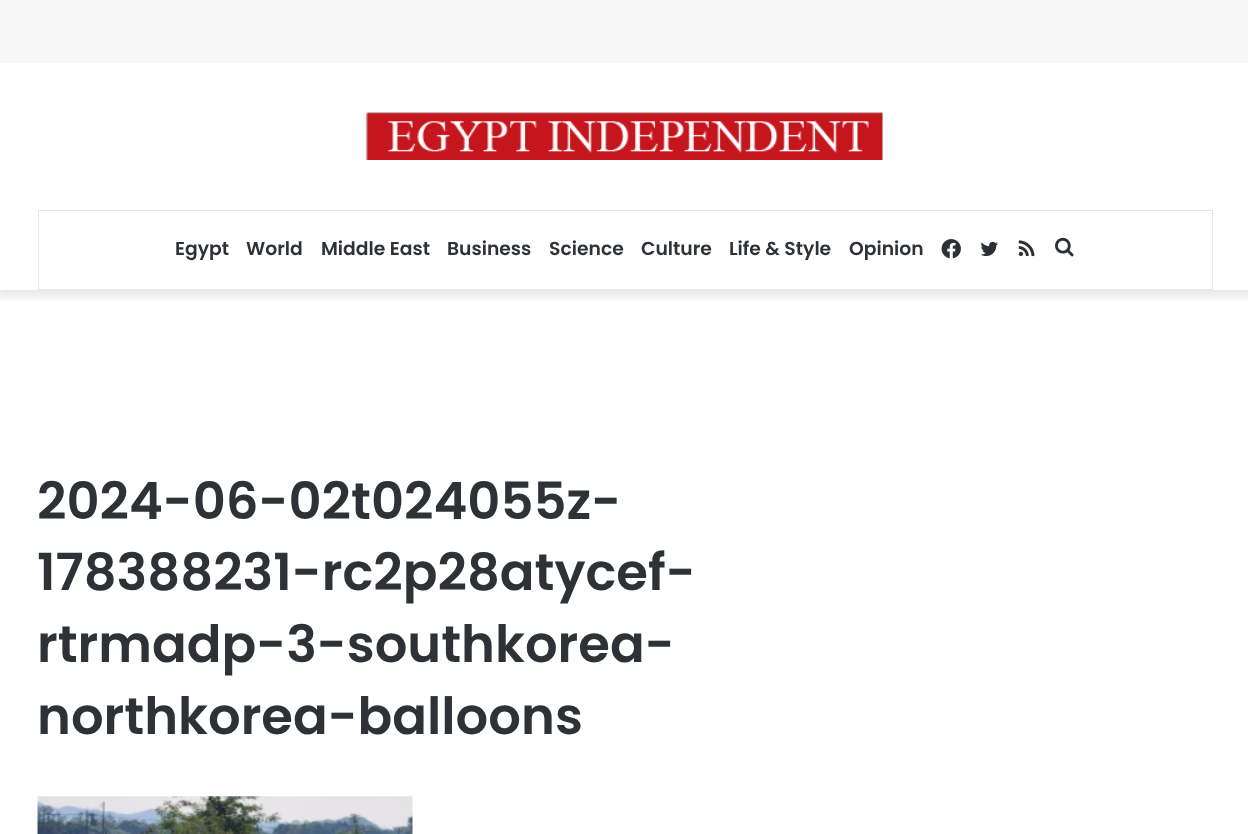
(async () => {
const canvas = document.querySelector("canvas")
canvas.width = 1248
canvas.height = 834
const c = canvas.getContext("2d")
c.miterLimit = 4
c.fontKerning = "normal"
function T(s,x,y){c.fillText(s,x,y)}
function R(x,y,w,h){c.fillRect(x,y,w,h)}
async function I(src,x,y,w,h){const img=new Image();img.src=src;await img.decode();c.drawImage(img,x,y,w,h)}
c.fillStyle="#f7f7f7"
R(0,0,1248,834)
c.fillStyle="#fff"
R(0,63,1248,771)
c.save()
c.beginPath()
c.rect(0,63,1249,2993)
c.clip()
c.beginPath()
c.rect(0,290,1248,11)
c.clip()
c.fillStyle="#0000001a"
c.filter="blur(6px)"
c.beginPath()
c.rect(-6,56,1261,240)
c.fill()
c.filter="none"
c.restore()
await I("1.png",366,112,517,48)
c.strokeStyle="#e6e6e6"
c.strokeRect(38.5,210.5,1174,79)
c.font="600 18.75px Poppins"
c.fillStyle="#2e3136"
T("Egypt",175,255)
T("World",246,255)
T("Middle East",321,255)
T("Business",447,255)
T("Science",549,255)
T("Culture",641,255)
T("Life & Style",729,255)
T("Opinion",849,255)
await I("2.png",941,239,20,20)
await I("3.png",980,241,18,16)
await I("4.png",1018,240,17,17)
await I("5.png",1055,237,19,20)
c.font="600 51.25px Poppins"
T("2024-06-02t024055z-",37,519)
T("178388231-rc2p28atycef-",37,590)
T("rtrmadp-3-southkorea-",37,662)
T("northkorea-balloons",37,734)
await I("6.png",37,796,376,38)
})()
